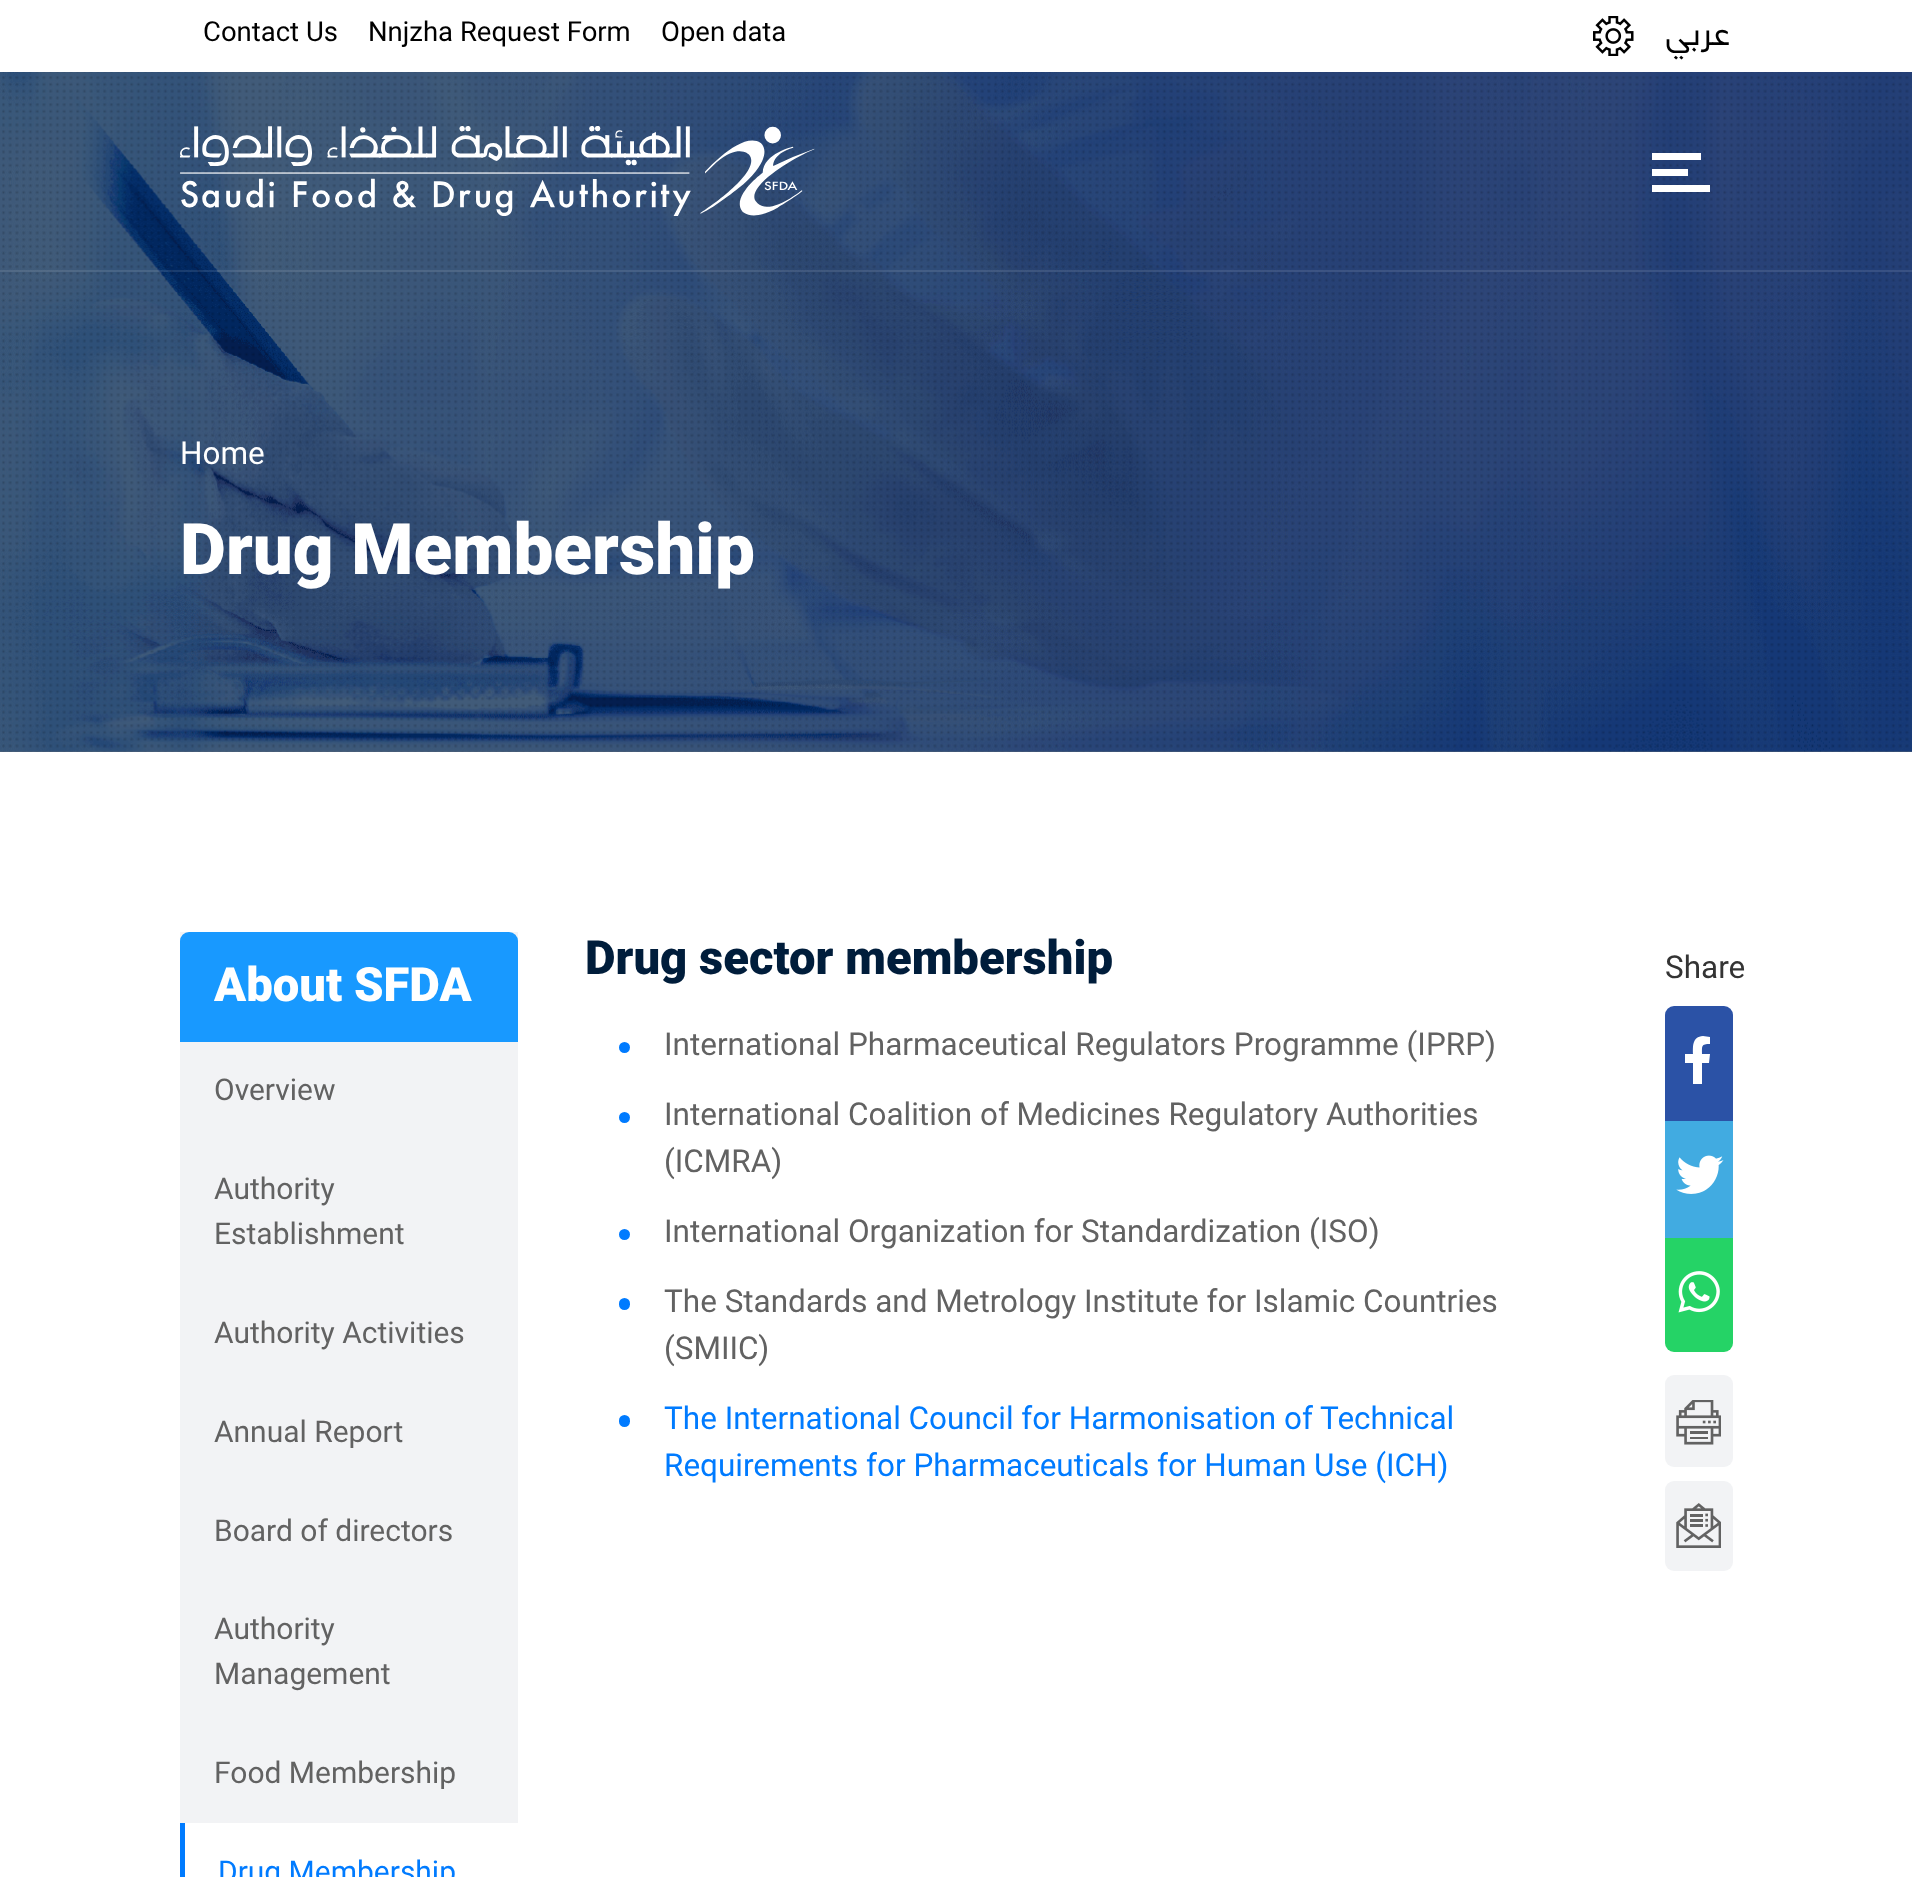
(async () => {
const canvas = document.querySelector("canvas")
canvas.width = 1912
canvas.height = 1877
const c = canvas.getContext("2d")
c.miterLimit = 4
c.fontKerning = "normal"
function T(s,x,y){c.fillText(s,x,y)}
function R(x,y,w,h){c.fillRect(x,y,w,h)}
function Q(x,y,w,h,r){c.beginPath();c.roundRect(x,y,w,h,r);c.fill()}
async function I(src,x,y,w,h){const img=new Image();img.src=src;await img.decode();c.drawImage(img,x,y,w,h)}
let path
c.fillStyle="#fff"
R(0,0,1912,1877)
c.fillStyle="#52657a"
R(0,751,1912,1)
await I("1.png",0,72,1912,680)
c.font="27.5px Roboto"
c.fillStyle="#000"
T("Contact Us",203,41)
T("Nnjzha Request Form",368,41)
T("Open data",661,41)
await I("2.png",1593,16,41,40)
c.direction="rtl"
c.font="31.5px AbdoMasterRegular"
T("عربي",1732,45)
await I("3.png",2,72,1907,680)
c.fillStyle="#ffffff1a"
R(0,270,1912,2)
await I("4.png",180,126,635,90)
c.fillStyle="#fff"
R(1652,153,49,7)
R(1652,169,36,7)
R(1652,185,58,7)
c.direction="ltr"
c.font="31.5px Roboto"
T("Home",180,464)
c.font="900 71px Roboto"
T("Drug Membership",180,574)
c.fillStyle="#f2f3f5"
R(180,932,338,891)
c.fillStyle="#1899ff"
c.beginPath()
c.roundRect(180,932,338,110,[9,9,0,0])
c.fill()
c.font="900 47.25px Roboto"
c.fillStyle="#fff"
T("About SFDA",214,1001)
c.font="30px Roboto"
c.fillStyle="#626262"
T("Overview",214,1100)
T("Authority",214,1199)
T("Establishment",214,1244)
T("Authority Activities",214,1343)
T("Annual Report",214,1442)
T("Board of directors",214,1541)
T("Authority",214,1639)
T("Management",214,1684)
T("Food Membership",214,1783)
c.fillStyle="#007bff"
R(180,1823,5,54)
T("Drug Membership",218,1882)
c.font="900 47.25px Roboto"
c.fillStyle="#001d3b"
T("Drug sector membership",585,974)
c.fillStyle="#007bff"
c.beginPath()
c.arc(624.5,1047.5,5.5,0,7)
c.fill()
c.font="31.5px Roboto"
c.fillStyle="#626262"
T("International Pharmaceutical Regulators Programme (IPRP)",664,1055)
c.fillStyle="#007bff"
c.beginPath()
c.arc(624.5,1117.5,5.5,0,7)
c.fill()
c.fillStyle="#626262"
T("International Coalition of Medicines Regulatory Authorities",664,1125)
T("(ICMRA)",664,1172)
c.fillStyle="#007bff"
c.beginPath()
c.arc(624.5,1234.5,5.5,0,7)
c.fill()
c.fillStyle="#626262"
T("International Organization for Standardization (ISO)",664,1242)
c.fillStyle="#007bff"
Q(619,1298,11,12,5.5)
c.fillStyle="#626262"
T("The Standards and Metrology Institute for Islamic Countries",664,1312)
T("(SMIIC)",664,1359)
c.fillStyle="#007bff"
Q(619,1415,11,12,5.5)
T("The International Council for Harmonisation of Technical",664,1429)
T("Requirements for Pharmaceuticals for Human Use (ICH)",664,1476)
c.fillStyle="#343434"
T("Share",1665,978)
c.fillStyle="#2b52a6"
c.beginPath()
c.roundRect(1665,1006,68,115,[9,9,0,0])
c.fill()
c.fillStyle="#fff"
path = new Path2D("M1709 1063l1-9h-8c0-8-1-10 8-10v-7l-7-1c-11 1-10 10-10 18h-8v9h8v21h9v-21z")
c.fill(path)
c.fillStyle="#41abe1"
R(1665,1121,68,117)
await I("5.png",1676,1155,48,39)
c.fillStyle="#25d366"
c.beginPath()
c.roundRect(1665,1238,68,114,[0,0,9,9])
c.fill()
await I("6.png",1678,1271,42,42)
c.fillStyle="#f2f3f5"
Q(1665,1375,68,92,9)
await I("7.png",1676,1400,45,45)
Q(1665,1481,68,90,9)
await I("8.png",1676,1503,45,45)
})()
